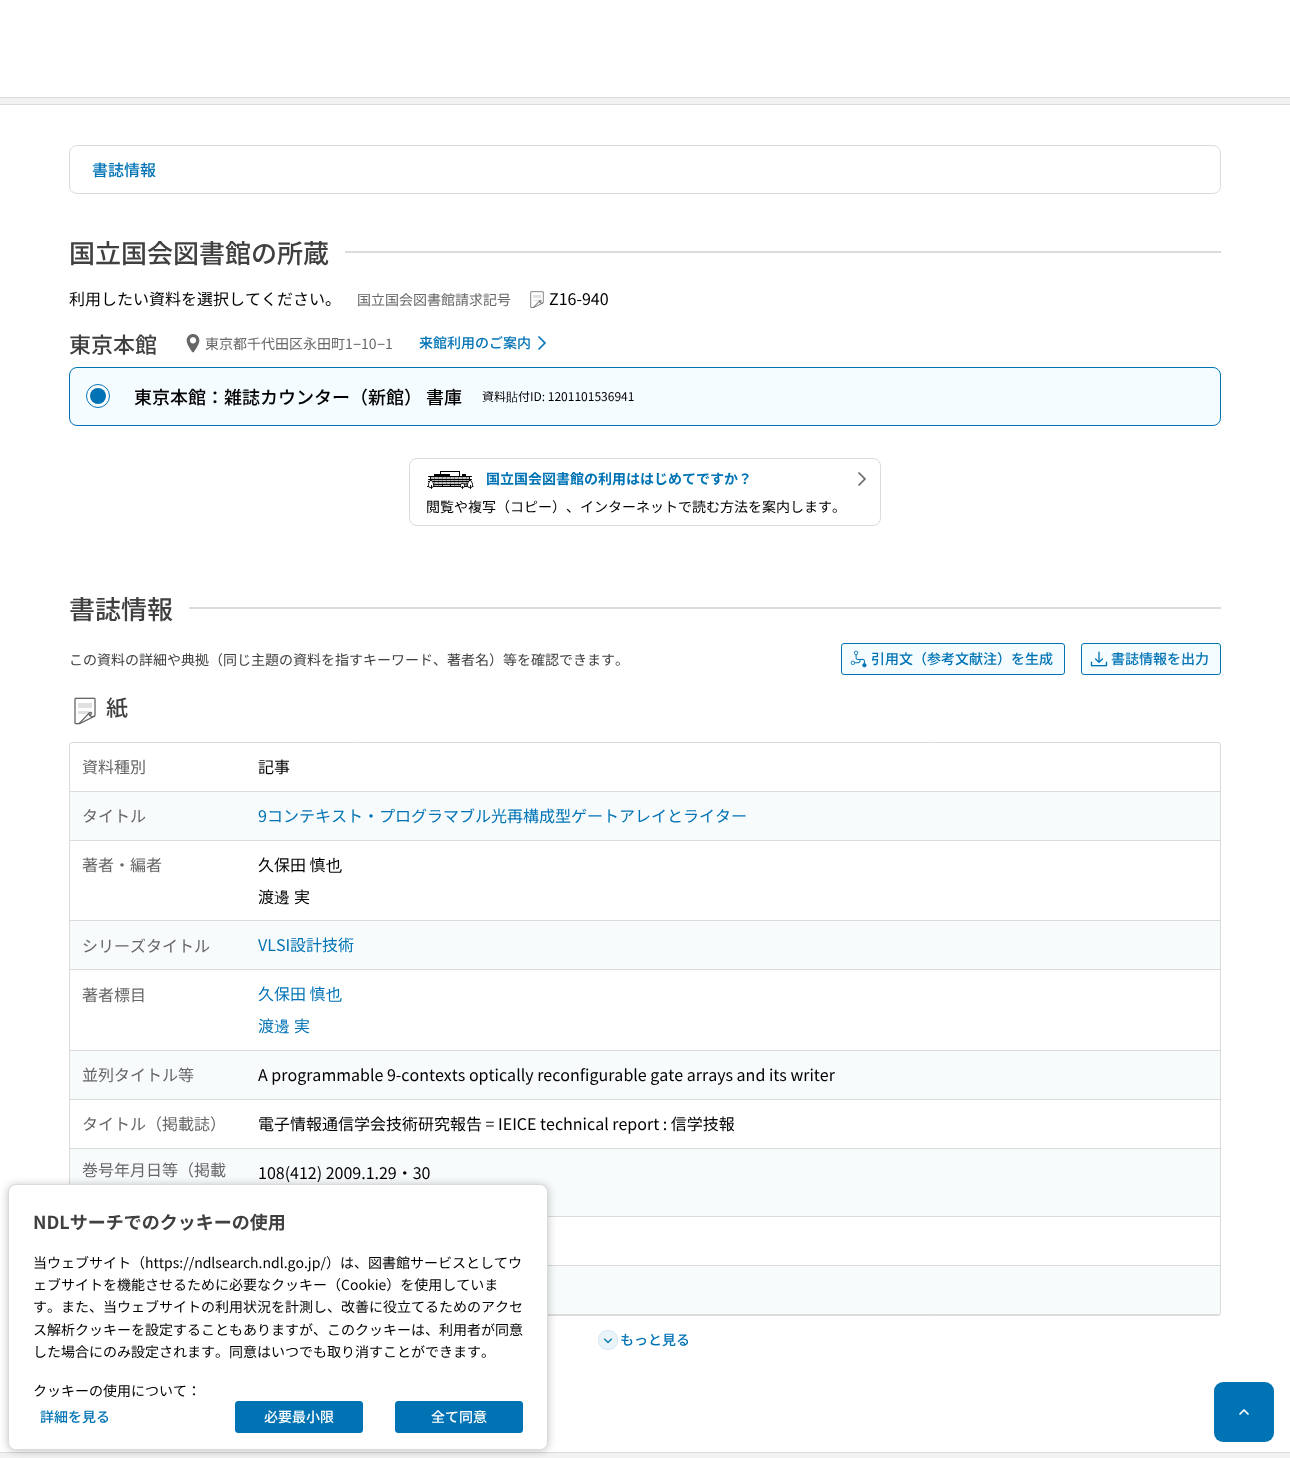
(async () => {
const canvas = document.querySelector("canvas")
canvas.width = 1290
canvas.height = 1458
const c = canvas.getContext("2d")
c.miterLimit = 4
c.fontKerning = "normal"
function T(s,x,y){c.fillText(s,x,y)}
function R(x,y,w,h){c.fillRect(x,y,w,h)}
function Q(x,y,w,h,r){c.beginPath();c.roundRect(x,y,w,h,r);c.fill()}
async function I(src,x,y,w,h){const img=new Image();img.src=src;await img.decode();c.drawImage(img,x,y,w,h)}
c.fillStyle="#fff"
R(0,0,1290,1458)
c.fillStyle="#f2f2f2"
R(0,98,1290,6)
c.fillStyle="#dbdbdb"
R(0,97,1290,1)
R(0,104,1290,1)
c.beginPath()
c.roundRect(69.5,145.5,1151,48,7.5)
c.strokeStyle="#dbdbdb"
c.stroke()
c.font="500 16px Noto Sans JP"
c.fillStyle="#0073b5"
T("書誌情報",92,176)
c.font="500 26px Noto Sans JP"
c.fillStyle="#404040"
T("国立国会図書館の所蔵",69,263)
c.fillStyle="#dbdbdb"
R(345,251,876,2)
c.font="16px Noto Sans JP"
c.fillStyle="#000"
T("利用したい資料を選択してください。",69,305)
c.font="14px Noto Sans JP"
c.fillStyle="#666"
T("国立国会図書館請求記号",357,305)
await I("1.png",530,291,14,17)
c.font="16px Noto Sans JP"
c.fillStyle="#000"
T("Z16-940",549,305)
c.font="500 22px Noto Sans JP"
c.fillStyle="#404040"
T("東京本館",69,353)
await I("2.png",186,334,14,19)
c.font="14px Noto Sans JP"
c.fillStyle="#666"
T("東京都千代田区永田町1",205,349)
c.font="14px Liberation Sans"
T("−",353,349)
c.font="14px Noto Sans JP"
T("10",361,349)
c.font="14px Liberation Sans"
T("−",377,349)
c.font="14px Noto Sans JP"
T("1",385,349)
c.font="500 14px Noto Sans JP"
c.fillStyle="#0073b5"
T("来館利用のご案内",419,348)
await I("3.png",538,336,8,14)
c.fillStyle="#f5fcff"
c.beginPath()
c.roundRect(69.5,367.5,1151,58,7.5)
c.fill()
c.strokeStyle="#0073b5"
c.stroke()
c.fillStyle="#fff"
c.beginPath()
c.arc(98,396,11.5,0,7)
c.fill()
c.stroke()
c.fillStyle="#0073b5"
c.beginPath()
c.arc(98,396,8,0,7)
c.fill()
c.font="500 18px Noto Sans JP"
c.fillStyle="#000"
T("東京本館：雑誌カウンター（新館） 書庫",134,404)
c.font="12px Noto Sans JP"
T("資料",482,401)
c.font="500 12px WenQuanYi Zen Hei"
T("貼",506,401)
c.font="12px Noto Sans JP"
T("付ID: 1201101536941",518,401)
c.beginPath()
c.roundRect(409.5,458.5,471,67,7.5)
c.strokeStyle="#dbdbdb"
c.stroke()
await I("4.png",427,471,47,18)
c.font="bold 14px Noto Sans JP"
c.fillStyle="#0073b5"
T("国立国会図書館の利用ははじめてですか？",486,484)
c.font="14px Noto Sans JP"
c.fillStyle="#000"
T("閲覧や複写（コピー）、インターネットで読む方法を案内します。",426,512)
await I("5.png",858,472,8,14)
c.font="500 26px Noto Sans JP"
c.fillStyle="#404040"
T("書誌情報",69,619)
c.fillStyle="#dbdbdb"
R(189,607,1032,2)
c.font="14px Noto Sans JP"
c.fillStyle="#404040"
T("この資料の詳細や典拠（同じ主題の資料を指すキーワード、著者名）等を確認できます。",69,665)
c.fillStyle="#f5fcff"
c.beginPath()
c.roundRect(841.5,643.5,223,31,2.5)
c.fill()
c.strokeStyle="#0073b5"
c.stroke()
await I("6.png",850,650,17,18)
c.font="500 14px Noto Sans JP"
c.fillStyle="#0073b5"
T("引用文（参考文献注）を生成",871,664)
c.fillStyle="#f5fcff"
c.beginPath()
c.roundRect(1081.5,643.5,139,31,2.5)
c.fill()
c.stroke()
await I("7.png",1090,651,18,16)
c.fillStyle="#0073b5"
T("書誌情報を出力",1111,664)
await I("8.png",74,697,22,28)
c.font="500 22px Noto Sans JP"
c.fillStyle="#404040"
T("紙",106,716)
c.beginPath()
c.roundRect(69.5,742.5,1151,573,2.5)
c.strokeStyle="#dbdbdb"
c.stroke()
c.fillStyle="#dbdbdb"
R(70,791,1150,1)
c.font="16px Noto Sans JP"
c.fillStyle="#666"
T("資料種別",82,773)
c.fillStyle="#000"
T("記事",258,773)
c.fillStyle="#f7fbfc"
R(70,792,1150,48)
c.fillStyle="#dbdbdb"
R(70,840,1150,1)
c.fillStyle="#666"
T("タイトル",82,822)
c.fillStyle="#0073b5"
T("9コンテキスト・プログラマブル光再構成型ゲートアレイとライター",258,822)
c.fillStyle="#dbdbdb"
R(70,920,1150,1)
c.fillStyle="#666"
T("著者・編者",82,871)
c.fillStyle="#000"
T("久保田 慎",258,871)
c.font="500 16px WenQuanYi Zen Hei"
T("也",326,871)
c.font="16px Noto Sans JP"
T("渡",258,903)
c.font="500 16px WenQuanYi Zen Hei"
T("邊",274,903)
c.font="16px Noto Sans JP"
T("実",294,903)
c.fillStyle="#f7fbfc"
R(70,921,1150,48)
c.fillStyle="#dbdbdb"
R(70,969,1150,1)
c.fillStyle="#666"
T("シリーズタイトル",82,952)
c.fillStyle="#0073b5"
T("VLSI設計技術",258,951)
c.fillStyle="#dbdbdb"
R(70,1050,1150,1)
c.fillStyle="#666"
T("著者標目",82,1001)
c.fillStyle="#0073b5"
T("久保田 慎",258,1000)
c.font="500 16px WenQuanYi Zen Hei"
T("也",326,1000)
c.font="16px Noto Sans JP"
T("渡",258,1032)
c.font="500 16px WenQuanYi Zen Hei"
T("邊",274,1032)
c.font="16px Noto Sans JP"
T("実",294,1032)
c.fillStyle="#f7fbfc"
R(70,1051,1150,48)
c.fillStyle="#dbdbdb"
R(70,1099,1150,1)
c.fillStyle="#666"
T("並列タイトル等",82,1081)
c.fillStyle="#000"
T("A programmable 9-contexts optically reconfigurable gate arrays and its writer",258,1081)
c.fillStyle="#dbdbdb"
R(70,1148,1150,1)
c.fillStyle="#666"
T("タイトル（掲載誌）",82,1130)
c.fillStyle="#000"
T("電子情報通信学会技術研究報告 = IEICE technical report : 信学技報",258,1130)
c.fillStyle="#f7fbfc"
R(70,1149,1150,67)
c.fillStyle="#dbdbdb"
R(548,1216,672,1)
c.fillStyle="#666"
T("巻号年月日等（掲載",82,1176)
c.fillStyle="#000"
T("108(412) 2009.1.29・30",258,1179)
c.fillStyle="#dbdbdb"
R(548,1265,672,1)
c.fillStyle="#f7fbfc"
R(548,1266,672,48)
c.fillStyle="#dbdbdb"
R(548,1314,672,1)
await I("9.png",598,1330,20,20)
c.font="500 14px Noto Sans JP"
c.fillStyle="#0073b5"
T("もっと見る",620,1345)
c.fillStyle="#f2f2f2"
R(0,1453,1290,5)
c.fillStyle="#dbdbdb"
R(0,1452,1290,1)
c.fillStyle="#0000003d"
c.filter="blur(4px)"
c.beginPath()
c.roundRect(8,1185,540,266,8)
c.fill()
c.filter="none"
c.fillStyle="#fff"
c.beginPath()
c.roundRect(8.5,1184.5,539,265,7.5)
c.fill()
c.stroke()
c.font="bold 18px Noto Sans JP"
c.fillStyle="#404040"
T("NDLサーチでのクッキーの使用",33,1229)
c.font="14px Noto Sans JP"
c.fillStyle="#000"
T("当ウェブサイト（https://ndlsearch.ndl.go.jp/）は、図書館サービスとしてウ",33,1268)
T("ェブサイトを機能させるために必要なクッキー（Cookie）を使用していま",33,1290)
T("す。また、当ウェブサイトの利用状況を計測し、改善に役立てるためのアクセ",33,1312)
T("ス解析クッキーを設定することもありますが、このクッキーは、利用者が同意",33,1335)
T("した場合にのみ設定されます。同意はいつでも取り消すことができます。",33,1357)
c.fillStyle="#fff"
c.beginPath()
c.roundRect(9,1363,538,86,[0,0,7,7])
c.fill()
c.fillStyle="#000"
T("クッキーの使用について：",33,1396)
c.font="500 14px Noto Sans JP"
c.fillStyle="#0073b5"
T("詳細を見る",40,1422)
c.beginPath()
c.roundRect(235.5,1401.5,127,31,2.5)
c.fill()
c.strokeStyle="#0073b5"
c.stroke()
c.fillStyle="#fff"
T("必要最小限",264,1422)
c.fillStyle="#0073b5"
c.beginPath()
c.roundRect(395.5,1401.5,127,31,2.5)
c.fill()
c.stroke()
c.fillStyle="#fff"
T("全て同意",431,1422)
c.fillStyle="#0073b5"
Q(1214,1382,60,60,9)
await I("10.png",1239,1409,10,6)
})()
